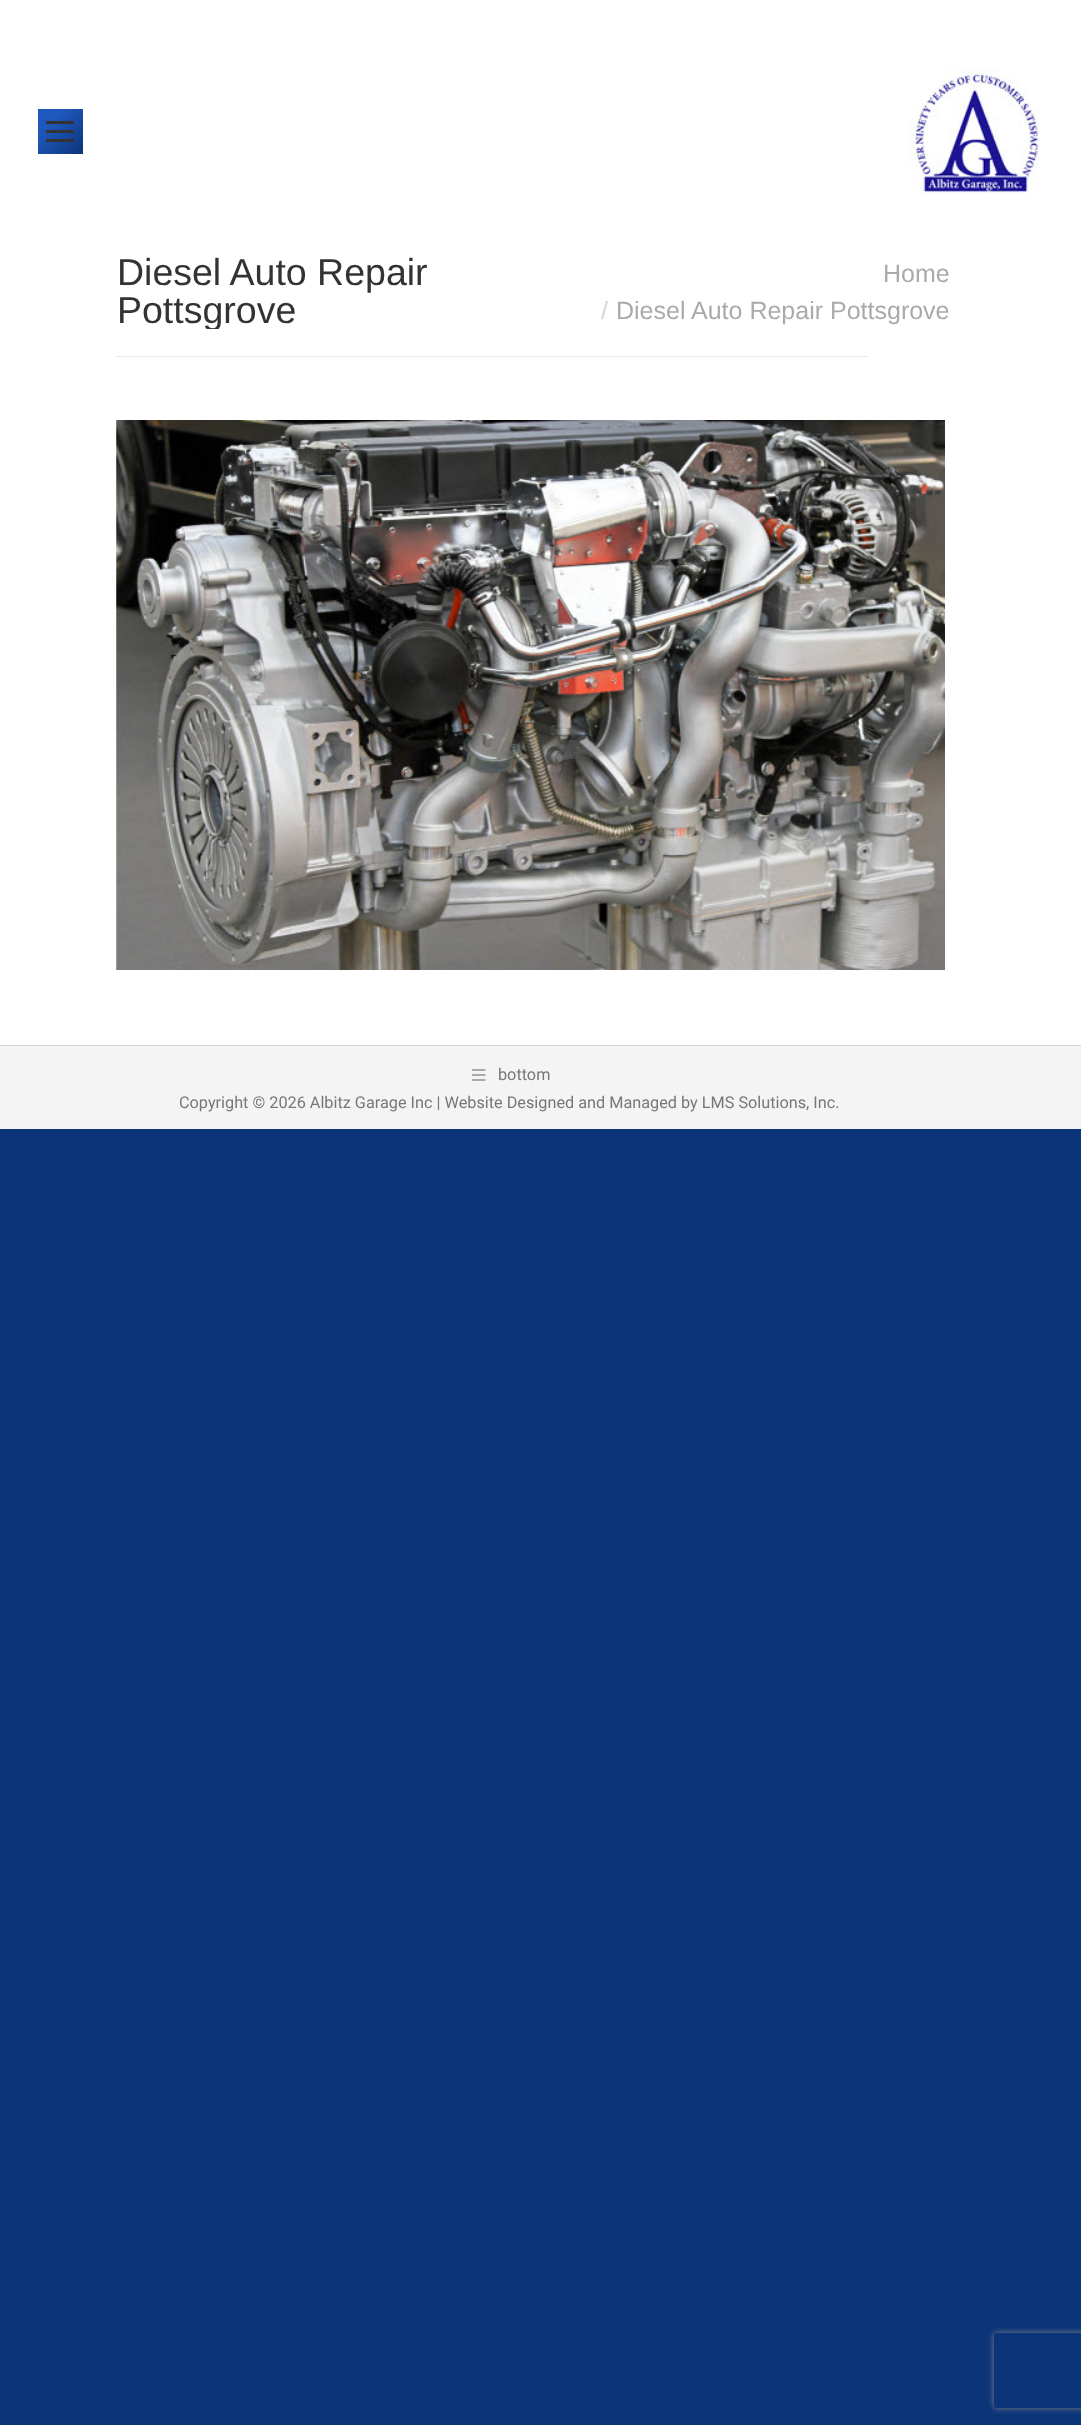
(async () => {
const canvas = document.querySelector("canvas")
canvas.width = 1081
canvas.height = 2425
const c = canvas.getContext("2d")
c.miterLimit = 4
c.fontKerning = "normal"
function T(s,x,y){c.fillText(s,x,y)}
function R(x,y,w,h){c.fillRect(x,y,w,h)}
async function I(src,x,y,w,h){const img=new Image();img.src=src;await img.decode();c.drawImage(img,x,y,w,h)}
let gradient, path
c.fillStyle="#0c3479"
R(0,0,1081,2425)
c.fillStyle="#fff"
R(0,0,1081,1045)
gradient = c.createLinearGradient(38,109,83,154)
gradient.addColorStop(.3,"#1e58bc")
gradient.addColorStop(1,"#0c3479")
c.fillStyle = gradient
R(38,109,45,45)
c.fillStyle="#333"
R(46,121,28,3)
R(46,130,28,3)
R(46,139,28,3)
await I("1.png",909,68,130,126)
c.font="37.5px Liberation Sans"
T("Diesel Auto Repair",117,285)
c.save()
c.beginPath()
c.rect(116,254,445,75)
c.clip()
T("Pottsgrove",117,323)
c.restore()
c.font="25px Liberation Sans"
c.fillStyle="#aaa"
T("Home",883,282)
c.fillStyle="#d5d5d5"
T("/",601,319)
c.fillStyle="#aaa"
T("Diesel Auto Repair Pottsgrove",616,319)
c.fillStyle="#e9e9e9"
R(116,356,752,1)
await I("2.png",116,420,829,550)
c.fillStyle="#f4f4f4"
R(0,1046,1081,83)
c.fillStyle="#d6d6d6"
R(0,1045,1081,1)
await I("3.png",472,1069,14,12)
c.font="16.25px Roboto"
c.fillStyle="#777"
T("bottom",498,1080)
T("Copyright © 2026 Albitz Garage Inc | Website Designed and Managed by LMS Solutions, Inc.",179,1108)
c.save()
path = new Path2D("M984 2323h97v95h-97zm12.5 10h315c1.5 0 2.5 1 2.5 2.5v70c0 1.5-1 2.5-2.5 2.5h-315c-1.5 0-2.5-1-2.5-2.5v-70c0-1.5 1-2.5 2.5-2.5z")
c.clip(path,"evenodd")
c.fillStyle="#808080"
c.filter="blur(3px)"
c.beginPath()
c.roundRect(994,2333,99,75,2.5)
c.fill()
c.filter="none"
c.restore()
})()
